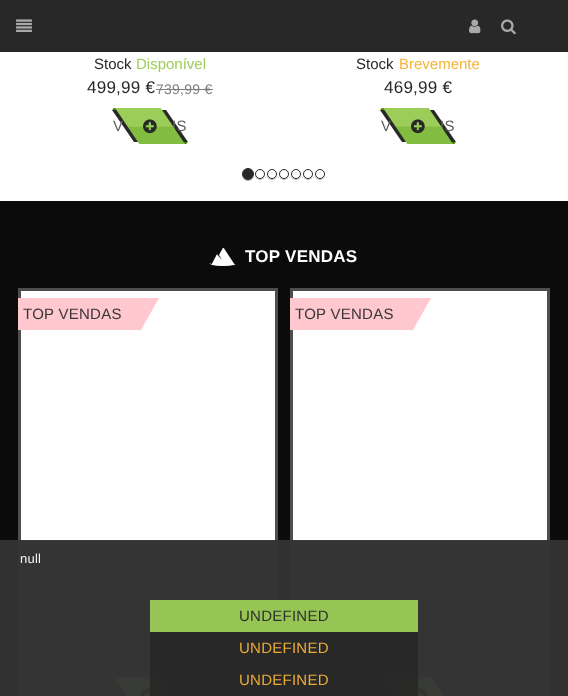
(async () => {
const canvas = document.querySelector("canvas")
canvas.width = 568
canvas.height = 696
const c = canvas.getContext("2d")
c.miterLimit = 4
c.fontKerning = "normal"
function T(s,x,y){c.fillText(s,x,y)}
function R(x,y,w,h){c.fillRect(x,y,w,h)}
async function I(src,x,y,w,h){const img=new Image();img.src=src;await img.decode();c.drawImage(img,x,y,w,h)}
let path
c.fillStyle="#fff"
R(0,0,568,696)
c.fillStyle="#282828"
R(0,0,568,52)
await I("1.png",16,19,16,13)
await I("2.png",469,19,12,15)
await I("3.png",501,19,15,16)
c.font="15px Liberation Sans"
T("Stock",94,69)
c.fillStyle="#9ccd58"
T("Disponível",136,69)
c.letterSpacing="0.25px"
c.font="17px Liberation Sans"
c.fillStyle="#282828"
T("499,99 €",87,93)
c.font="14px Liberation Sans"
c.fillStyle="#7e7e7e"
T("739,99 €",156,94)
R(156,89,57,1)
c.fillStyle="#282828"
path = new Path2D("M112 110h54l22 32h-54z")
c.fill(path)
c.font="15px Liberation Sans"
c.fillStyle="#5f5f5f"
T("V",113,131)
T("IS",172,131)
await I("4.png",112,108,76,36)
await I("5.png",143,119,14,15)
c.letterSpacing="0px"
c.fillStyle="#282828"
T("Stock",356,69)
c.fillStyle="#f6b337"
T("Brevemente",399,69)
c.letterSpacing="0.25px"
c.font="17px Liberation Sans"
c.fillStyle="#282828"
T("469,99 €",384,93)
path = new Path2D("M380 110h54l22 32h-54z")
c.fill(path)
c.font="15px Liberation Sans"
c.fillStyle="#5f5f5f"
T("V",381,131)
T("IS",440,131)
await I("4.png",380,108,76,36)
await I("5.png",411,119,14,15)
c.fillStyle="#b3b3b3"
path = new Path2D("M242 174.5c-.5 8.5 12.5 8.5 12 0c-.5 7-11.5 7-12 0z")
c.fill(path)
c.fillStyle="#282828"
c.beginPath()
c.arc(248,174,5.5,0,7)
c.fill()
c.strokeStyle="#282828"
c.stroke()
c.fillStyle="#b3b3b3"
path = new Path2D("M255 174.5c-.5 7 10.5 7 10 0c-.5 6-9.5 6-10 0z")
c.fill(path)
c.beginPath()
c.arc(260,174,4.5,0,7)
c.stroke()
path = new Path2D("M267 174.5c-.5 7 10.5 7 10 0c-.5 6-9.5 6-10 0z")
c.fill(path)
c.beginPath()
c.arc(272,174,4.5,0,7)
c.stroke()
path = new Path2D("M279 174.5c-.5 7 10.5 7 10 0c-.5 6-9.5 6-10 0z")
c.fill(path)
c.beginPath()
c.arc(284,174,4.5,0,7)
c.stroke()
path = new Path2D("M291 174.5c-.5 7 10.5 7 10 0c-.5 6-9.5 6-10 0z")
c.fill(path)
c.beginPath()
c.arc(296,174,4.5,0,7)
c.stroke()
path = new Path2D("M303 174.5c-.5 7 10.5 7 10 0c-.5 6-9.5 6-10 0z")
c.fill(path)
c.beginPath()
c.arc(308,174,4.5,0,7)
c.stroke()
path = new Path2D("M315 174.5c-.5 7 10.5 7 10 0c-.5 6-9.5 6-10 0z")
c.fill(path)
c.beginPath()
c.arc(320,174,4.5,0,7)
c.stroke()
c.fillStyle="#0b0b0b"
R(0,201,568,339)
c.fillStyle="#313131"
R(0,540,568,156)
await I("6.png",209,248,27,18)
c.font="bold 17px Liberation Sans"
c.fillStyle="#fff"
T("TOP VENDAS",245,262)
c.fillStyle="#4d4e4d"
R(18,288,260,252)
c.fillStyle="#343434"
R(18,540,260,156)
c.fillStyle="#fff"
R(21,291,254,249)
c.fillStyle="#3d3d3d"
R(21,540,254,1)
c.fillStyle="#ffc7ce"
R(18,298,93,32)
path = new Path2D("M111 298h48l-18 32h-49z")
c.fill(path)
c.font="15px Liberation Sans"
c.fillStyle="#393639"
T("TOP VENDAS",23,319)
await I("7.png",110,677,62,19)
await I("8.png",141,688,14,8)
c.fillStyle="#4d4e4d"
R(290,288,260,252)
c.fillStyle="#343434"
R(290,540,260,156)
c.fillStyle="#fff"
R(293,291,254,249)
c.fillStyle="#3d3d3d"
R(293,540,254,1)
c.fillStyle="#ffc7ce"
R(290,298,93,32)
path = new Path2D("M383 298h48l-18 32h-49z")
c.fill(path)
c.fillStyle="#393639"
T("TOP VENDAS",295,319)
await I("7.png",382,677,62,19)
await I("8.png",413,688,14,8)
c.font="13px Liberation Sans"
c.fillStyle="#f6f6f6"
T("null",20,563)
c.fillStyle="#9ccd58f2"
R(150,600,268,32)
c.font="15px Liberation Sans"
c.fillStyle="#2e302a"
T("UNDEFINED",239,621)
c.fillStyle="#282828f2"
R(150,632,268,32)
c.fillStyle="#ecac36"
T("UNDEFINED",239,653)
c.fillStyle="#282828f2"
R(150,664,268,32)
c.fillStyle="#ecac36"
T("UNDEFINED",239,685)
})()
